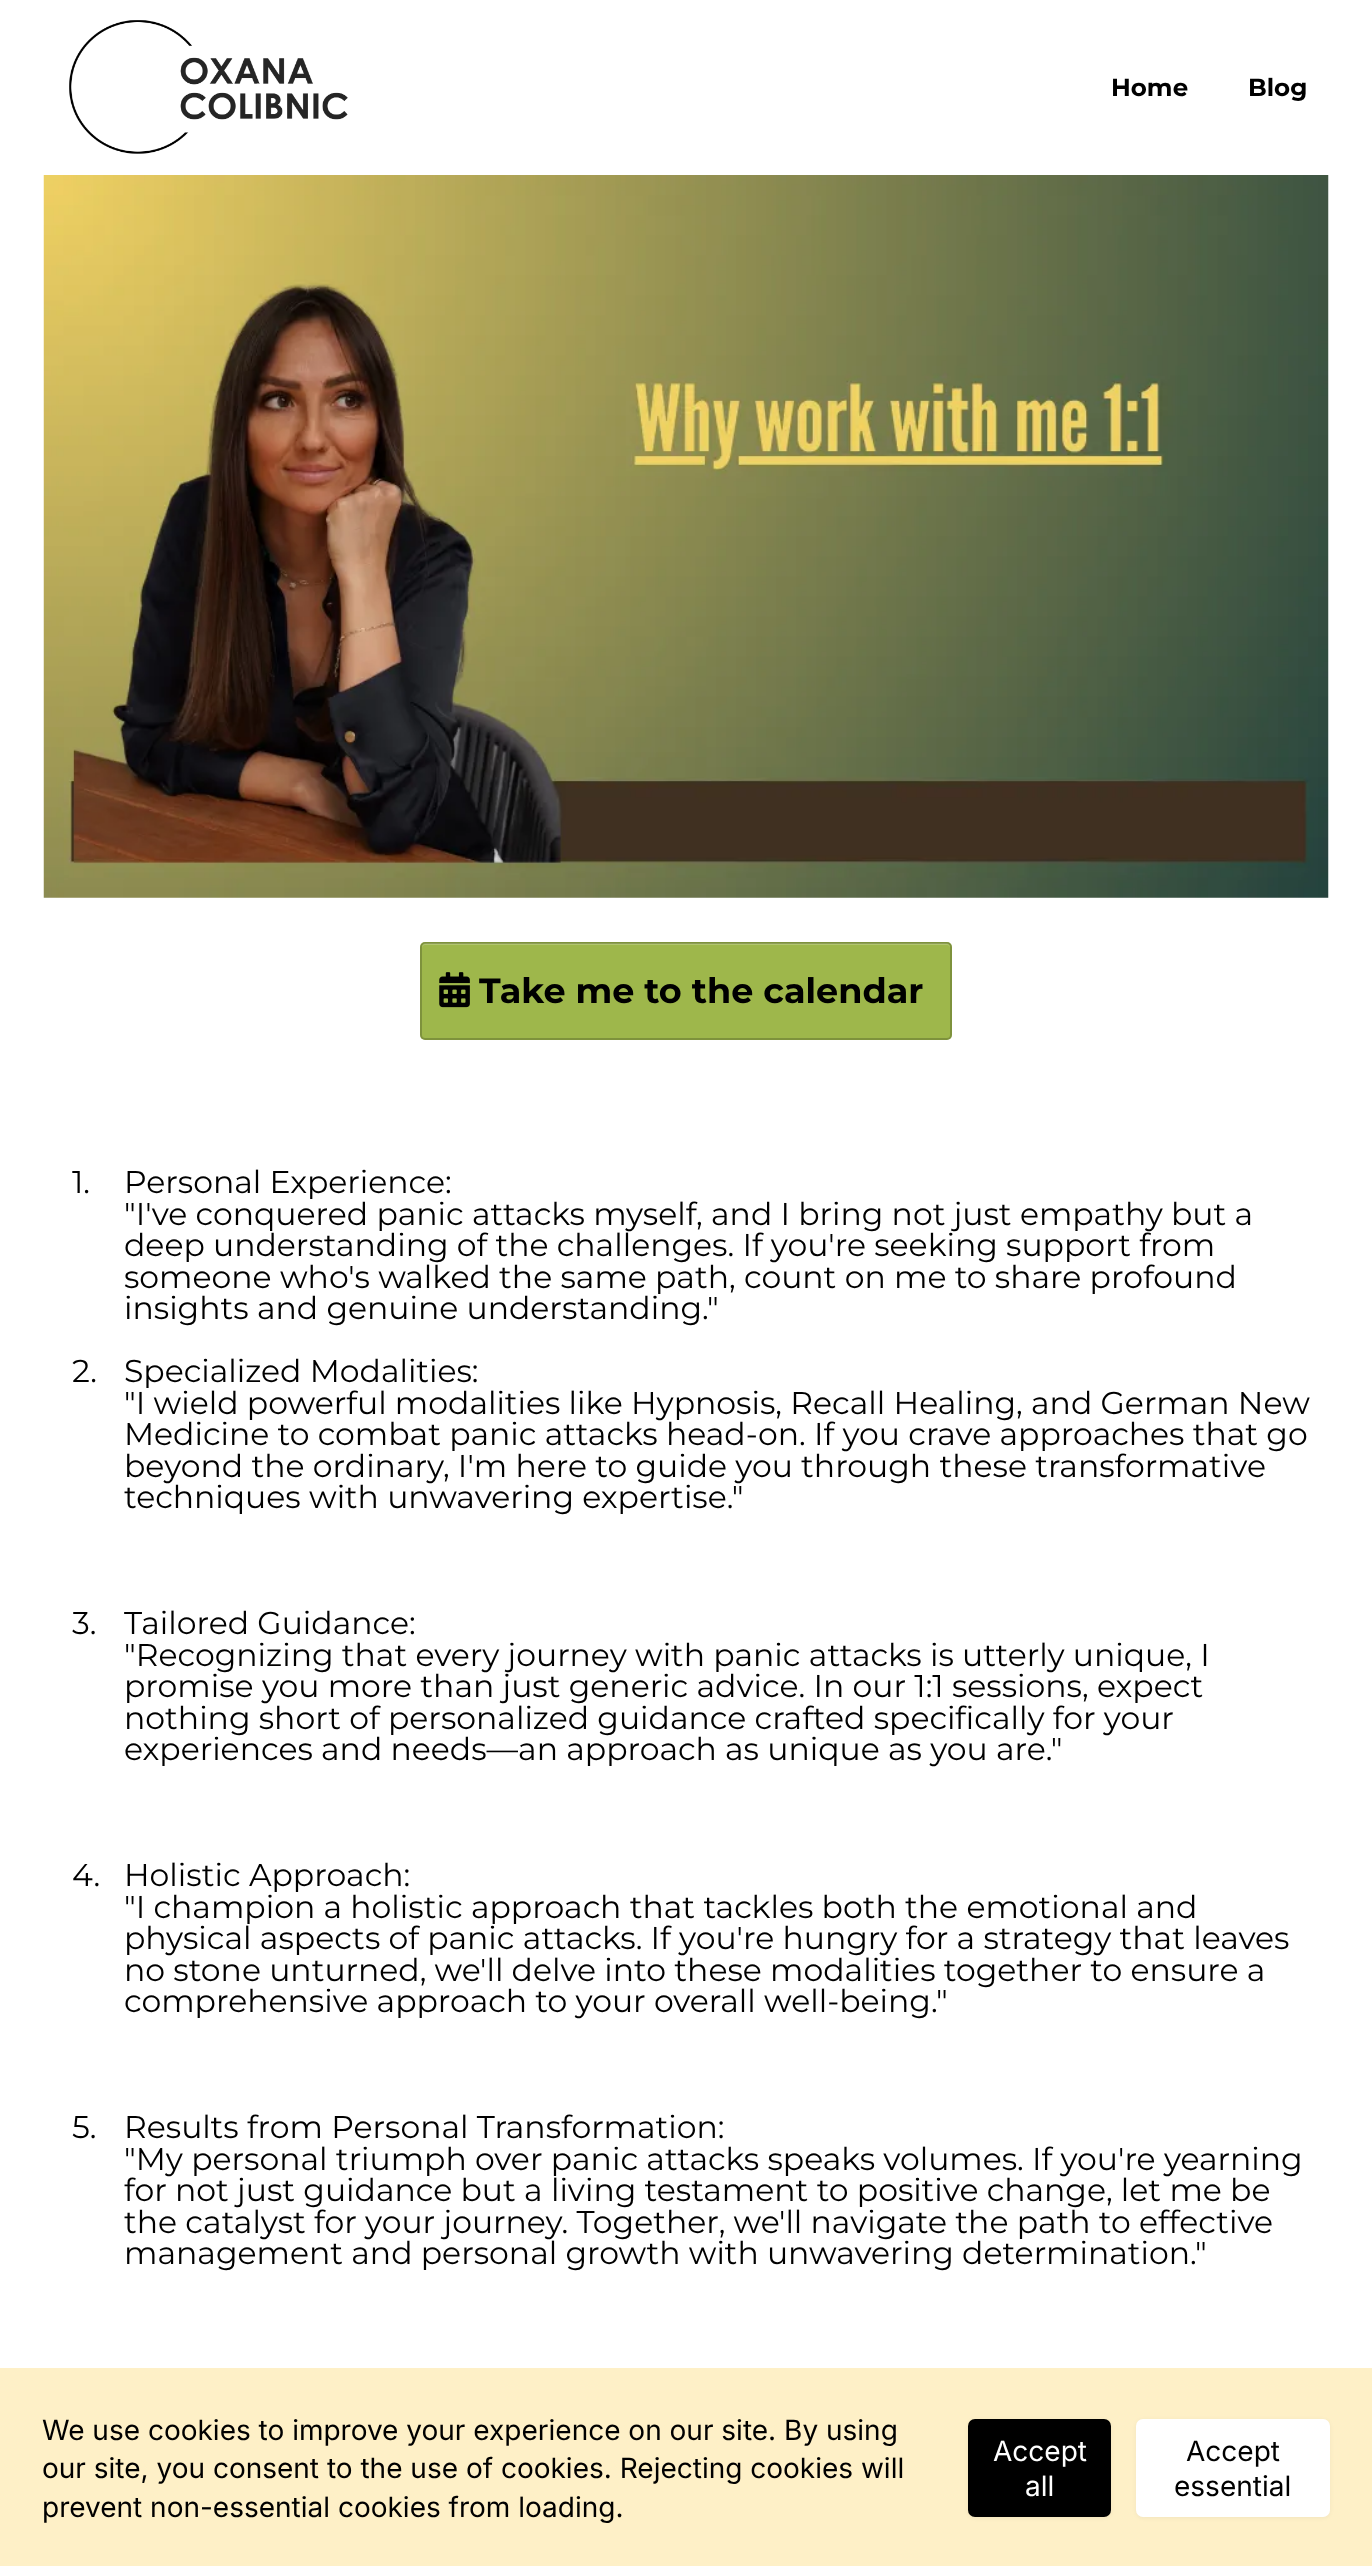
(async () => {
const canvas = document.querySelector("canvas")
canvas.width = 1372
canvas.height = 2566
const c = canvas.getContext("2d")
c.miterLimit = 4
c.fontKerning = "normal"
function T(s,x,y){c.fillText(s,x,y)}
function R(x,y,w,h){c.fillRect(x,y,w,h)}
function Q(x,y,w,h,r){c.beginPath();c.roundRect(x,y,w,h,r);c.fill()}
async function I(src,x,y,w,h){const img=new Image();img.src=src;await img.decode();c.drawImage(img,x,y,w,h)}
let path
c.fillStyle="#fff"
R(0,0,1372,2566)
await I("1.png",69,20,279,134)
c.font="bold 24.5px Montserrat"
c.fillStyle="#000"
T("Home",1111,96)
T("Blog",1248,96)
await I("2.png",43,175,1286,723)
c.fillStyle="#9eb74b"
Q(420,942,532,98,5)
c.fillStyle="#b1c56f"
path = new Path2D("M425 945h522c2 0 3 2 3 3v-1c0-2-2-4-4-4h-520c-2 0-4 2-4 4v1c0-1 1-3 3-3z")
c.fill(path)
c.beginPath()
c.roundRect(421,943,530,96,4)
c.strokeStyle="#00000033"
c.lineWidth=2
c.stroke()
await I("3.png",439,972,31,36)
c.font="bold 35px Montserrat"
c.fillStyle="#000"
T("Take me to the calendar",479,1003)
c.font="31.5px Montserrat"
T("1.",72,1193)
T("Personal Experience:",124,1193)
T("\"I've conquered panic attacks myself, and I bring not just empathy but a",124,1225)
T("deep understanding of the challenges. If you're seeking support from",124,1256)
T("someone who's walked the same path, count on me to share profound",124,1288)
T("insights and genuine understanding.\"",124,1319)
T("2.",72,1382)
T("Specialized Modalities:",124,1382)
T("\"I wield powerful modalities like Hypnosis, Recall Healing, and German New",124,1414)
T("Medicine to combat panic attacks head-on. If you crave approaches that go",124,1445)
T("beyond the ordinary, I'm here to guide you through these transformative",124,1477)
T("techniques with unwavering expertise.\"",124,1508)
T("3.",72,1634)
T("Tailored Guidance:",124,1634)
T("\"Recognizing that every journey with panic attacks is utterly unique, I",124,1666)
T("promise you more than just generic advice. In our 1:1 sessions, expect",124,1697)
T("nothing short of personalized guidance crafted specifically for your",124,1729)
T("experiences and needs—an approach as unique as you are.\"",124,1760)
T("4.",72,1886)
T("Holistic Approach:",124,1886)
T("\"I champion a holistic approach that tackles both the emotional and",124,1918)
T("physical aspects of panic attacks. If you're hungry for a strategy that leaves",124,1949)
T("no stone unturned, we'll delve into these modalities together to ensure a",124,1981)
T("comprehensive approach to your overall well-being.\"",124,2012)
T("5.",72,2138)
T("Results from Personal Transformation:",124,2138)
T("\"My personal triumph over panic attacks speaks volumes. If you're yearning",124,2170)
T("for not just guidance but a living testament to positive change, let me be",124,2201)
T("the catalyst for your journey. Together, we'll navigate the path to effective",124,2233)
T("management and personal growth with unwavering determination.\"",124,2264)
c.fillStyle="#fef0c7"
R(0,2368,1372,198)
c.font="28px Inter"
c.fillStyle="#000"
T("We use cookies to improve your experience on our site. By using",42,2440)
T("our site, you consent to the use of cookies. Rejecting cookies will",42,2478)
T("prevent non-essential cookies from loading.",42,2517)
c.fillStyle="#1018280d"
c.filter="blur(2px)"
c.beginPath()
c.roundRect(968,2420,143,98,7)
c.fill()
c.filter="none"
c.fillStyle="#000"
Q(968,2419,143,98,7)
c.fillStyle="#fff"
T("Accept",993,2461)
T("all",1025,2496)
c.fillStyle="#1018280d"
c.filter="blur(2px)"
c.beginPath()
c.roundRect(1136,2420,194,98,7)
c.fill()
c.filter="none"
c.fillStyle="#fff"
Q(1136,2419,194,98,7)
c.fillStyle="#000"
T("Accept",1186,2461)
T("essential",1174,2496)
})()
